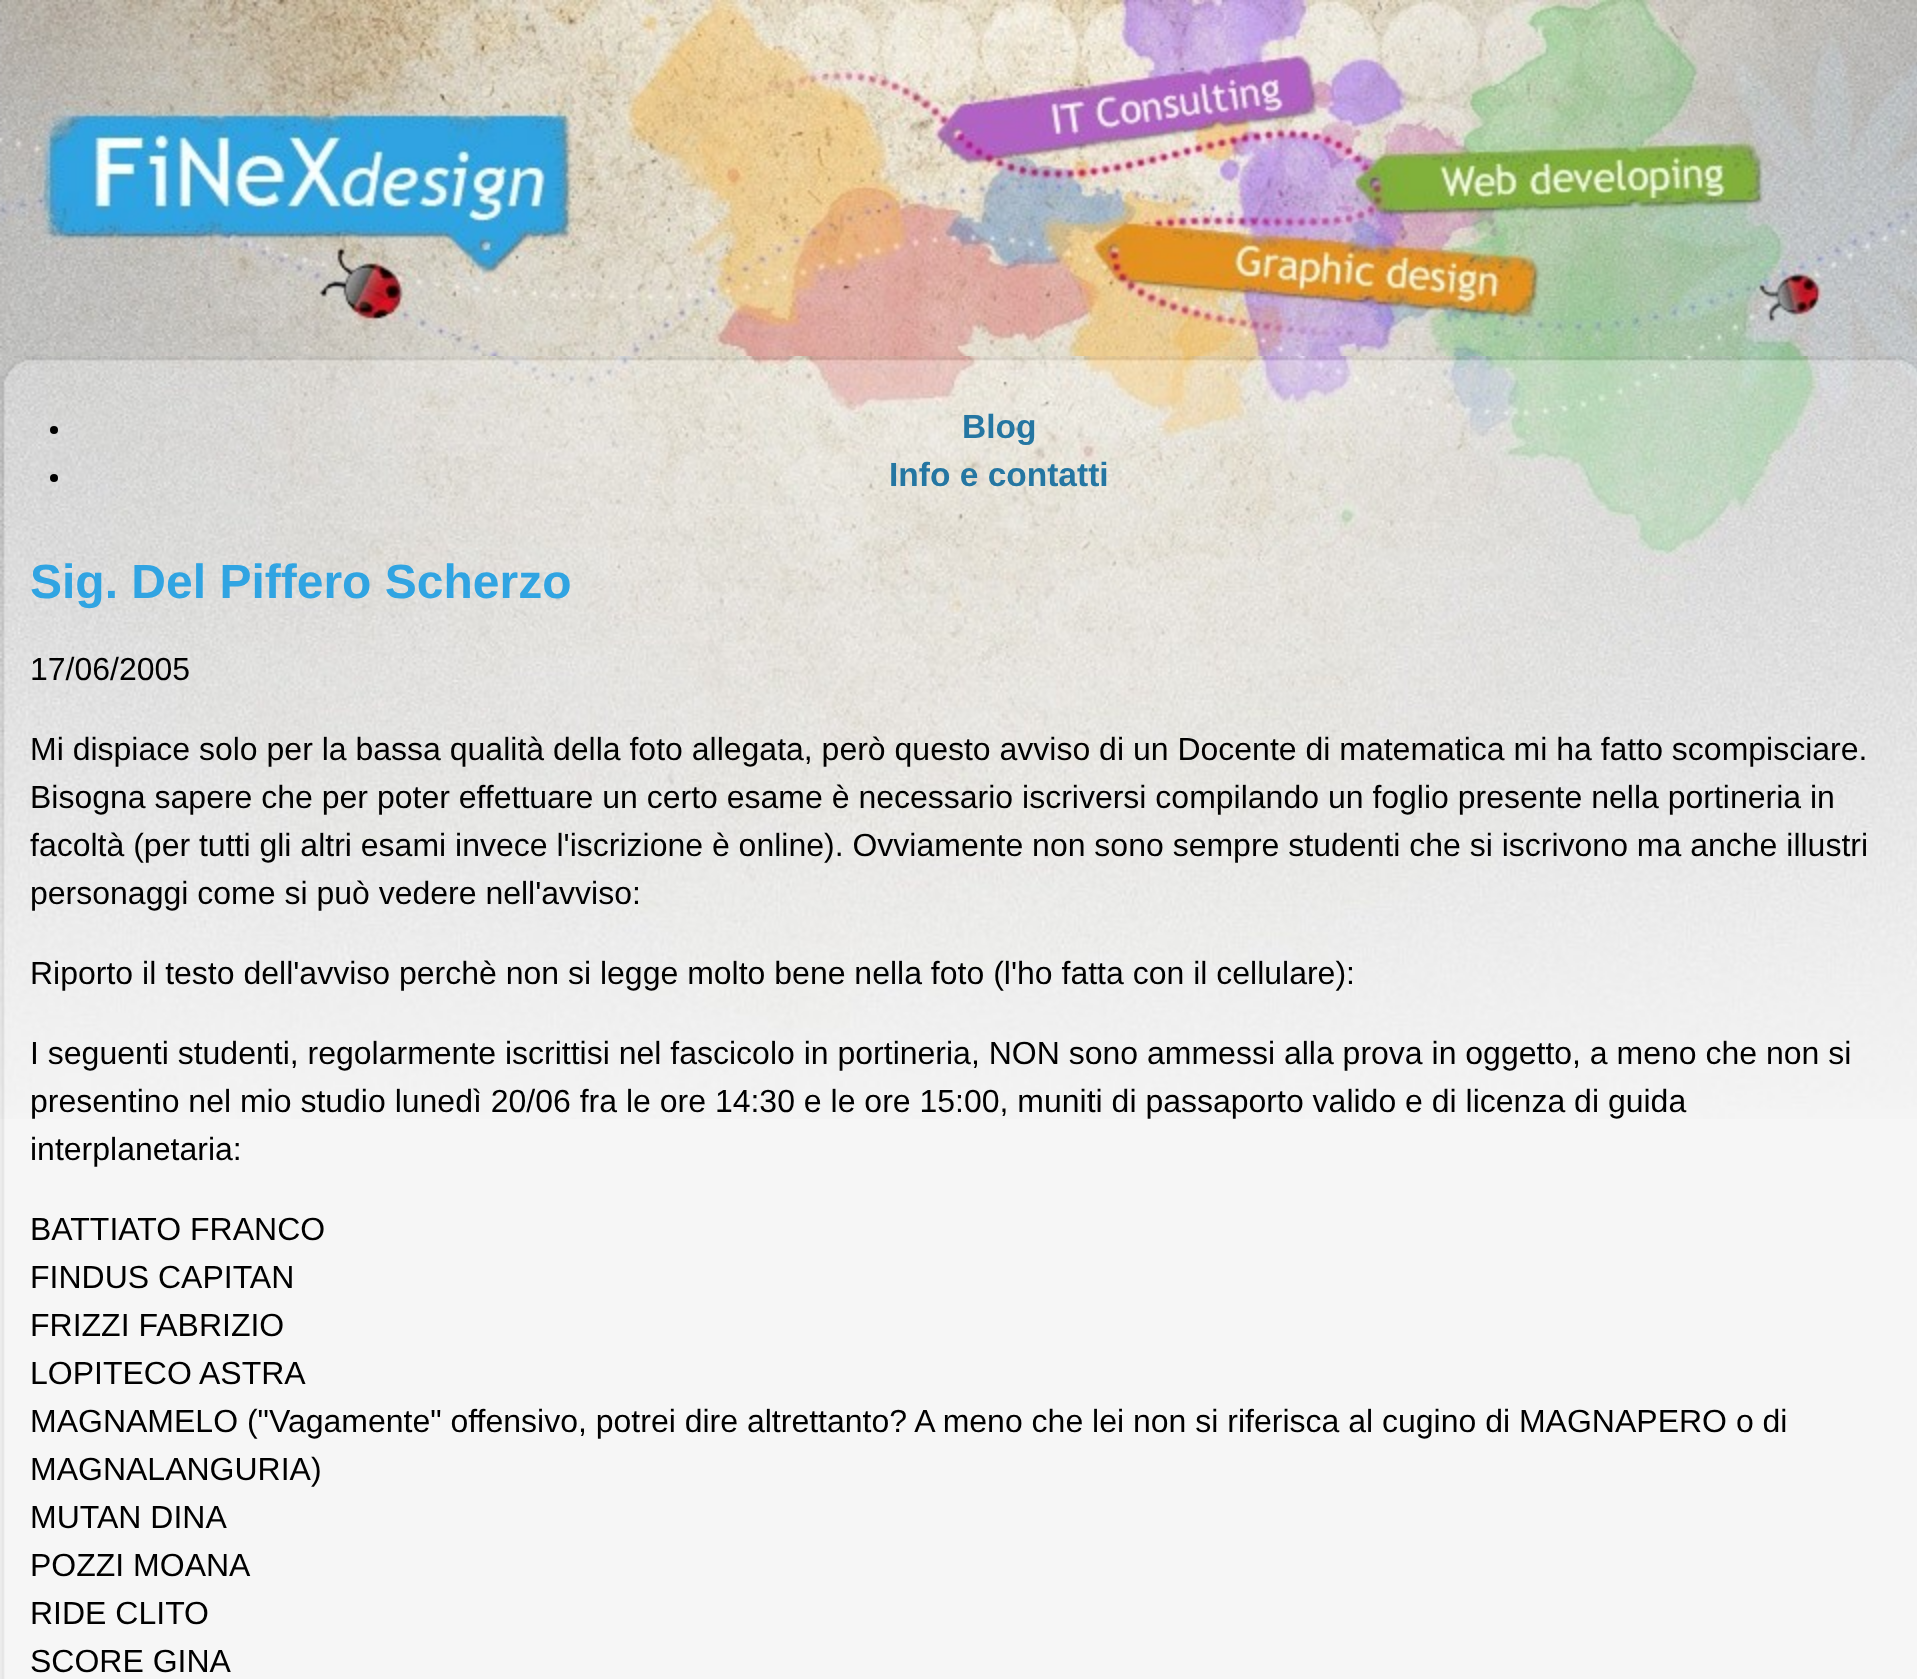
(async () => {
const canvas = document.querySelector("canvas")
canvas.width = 1917
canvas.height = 1679
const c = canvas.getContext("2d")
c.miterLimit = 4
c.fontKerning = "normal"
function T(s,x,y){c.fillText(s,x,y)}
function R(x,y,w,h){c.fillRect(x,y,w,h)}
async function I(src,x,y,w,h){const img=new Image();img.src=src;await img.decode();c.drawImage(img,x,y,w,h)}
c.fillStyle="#fff"
R(0,0,1917,1679)
await I("1.png",0,0,1917,356)
await I("2.png",0,1119,1917,560)
await I("3.png",0,356,1917,763)
c.fillStyle="#000"
c.beginPath()
c.arc(54,430,4,0,7)
c.fill()
c.font="bold 33.5px Liberation Sans"
c.fillStyle="#2476a2"
T("Blog",962,438)
c.fillStyle="#000"
c.beginPath()
c.arc(54,478,4,0,7)
c.fill()
c.fillStyle="#2476a2"
T("Info e contatti",889,486)
c.font="bold 48px Liberation Sans"
c.fillStyle="#30a4e2"
T("Sig. Del Piffero Scherzo",30,598)
c.font="32px Liberation Sans"
c.fillStyle="#000"
T("17/06/2005",30,680)
T("Mi dispiace solo per la bassa qualità della foto allegata, però questo avviso di un Docente di matematica mi ha fatto scompisciare.",30,760)
T("Bisogna sapere che per poter effettuare un certo esame è necessario iscriversi compilando un foglio presente nella portineria in",30,808)
T("facoltà (per tutti gli altri esami invece l'iscrizione è online). Ovviamente non sono sempre studenti che si iscrivono ma anche illustri",30,856)
T("personaggi come si può vedere nell'avviso:",30,904)
T("Riporto il testo dell'avviso perchè non si legge molto bene nella foto (l'ho fatta con il cellulare):",30,984)
T("I seguenti studenti, regolarmente iscrittisi nel fascicolo in portineria, NON sono ammessi alla prova in oggetto, a meno che non si",30,1064)
T("presentino nel mio studio lunedì 20/06 fra le ore 14:30 e le ore 15:00, muniti di passaporto valido e di licenza di guida",30,1112)
T("interplanetaria:",30,1160)
T("BATTIATO FRANCO",30,1240)
T("FINDUS CAPITAN",30,1288)
T("FRIZZI FABRIZIO",30,1336)
T("LOPITECO ASTRA",30,1384)
T("MAGNAMELO (\"Vagamente\" offensivo, potrei dire altrettanto? A meno che lei non si riferisca al cugino di MAGNAPERO o di",30,1432)
T("MAGNALANGURIA)",30,1480)
T("MUTAN DINA",30,1528)
T("POZZI MOANA",30,1576)
T("RIDE CLITO",30,1624)
T("SCORE GINA",30,1672)
})()
